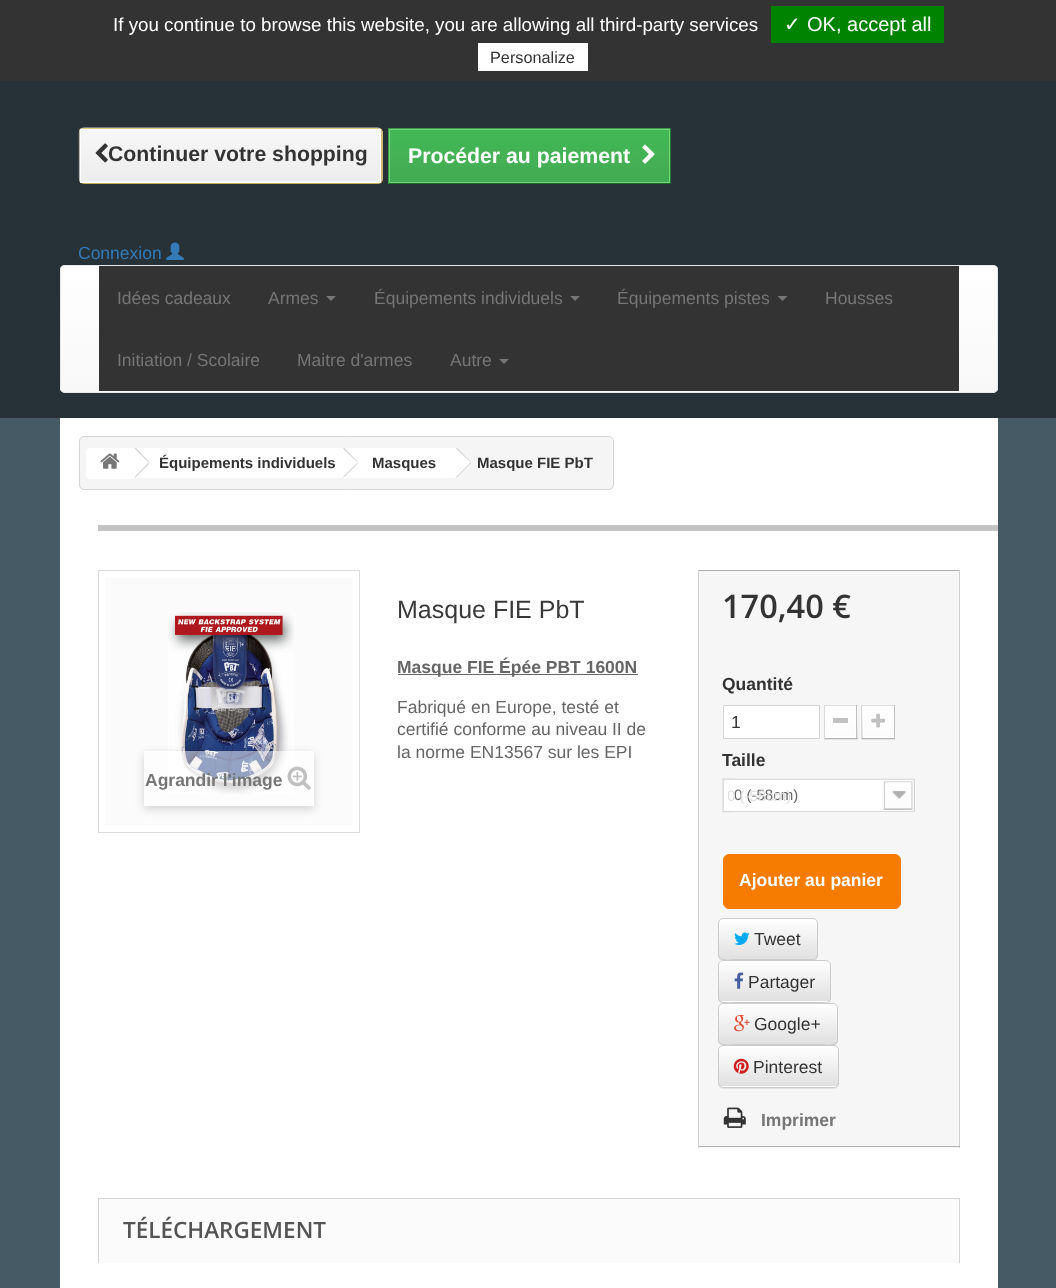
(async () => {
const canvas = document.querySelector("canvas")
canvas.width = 1056
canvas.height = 1288
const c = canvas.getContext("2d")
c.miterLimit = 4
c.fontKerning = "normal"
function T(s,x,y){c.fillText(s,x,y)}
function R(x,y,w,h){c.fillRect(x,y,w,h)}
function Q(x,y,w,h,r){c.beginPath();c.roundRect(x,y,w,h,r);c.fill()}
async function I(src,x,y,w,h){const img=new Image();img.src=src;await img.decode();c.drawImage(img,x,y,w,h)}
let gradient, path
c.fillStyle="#263238"
R(0,0,1056,1288)
c.fillStyle="#333"
R(0,0,1056,81)
c.font="18.75px Liberation Sans"
c.fillStyle="#fff"
T("If you continue to browse this website, you are allowing all third-party services",113,31)
c.fillStyle="#008300"
R(771,6,173,37)
c.font="20px DejaVu Sans"
c.fillStyle="#fff"
T("✓",784,31)
c.font="20px Liberation Sans"
T("OK, accept all",807,31)
R(478,43,110,28)
c.font="16.25px Liberation Sans"
c.fillStyle="#333"
T("Personalize",490,63)
c.fillStyle="#f4b61b"
Q(79,128,304,56,5)
await I("1.png",78,128,305,31)
path = new Path2D("M80.5 129.5c1-1 2-1.5 3.5-1.5h293.5c1 0 2.5 .5 3 1.5")
c.strokeStyle="#cacaca"
c.lineWidth=1.2
c.stroke(path)
path = new Path2D("M380.5 129.5c1 .5 1.5 2 1.5 3v46.5c0 1-.5 2-1.5 3")
c.strokeStyle="#b7b7b7"
c.stroke(path)
path = new Path2D("M380.5 182c-.5 .5-2 1-3 1h-293.5c-1.5 0-2.5-.5-3.5-1")
c.strokeStyle="#9a9a9a"
c.stroke(path)
path = new Path2D("M80.5 182c-.5-1-1-2-1-3v-46.5c0-1 .5-2.5 1-3")
c.strokeStyle="#b7b7b7"
c.stroke(path)
gradient = c.createLinearGradient(231,130,231,181)
gradient.addColorStop(0,"#f7f7f7")
gradient.addColorStop(1,"#ededed")
c.fillStyle = gradient
R(81,130,299,51)
gradient = c.createLinearGradient(231,181,231,233)
gradient.addColorStop(0,"#f7f7f7")
gradient.addColorStop(1,"#ededed")
c.fillStyle = gradient
R(80,181,301,1)
c.strokeStyle="#fff"
c.lineWidth=1
c.strokeRect(80.5,129.5,300,53)
await I("2.png",95,143,13,20)
c.font="bold 21.25px Liberation Sans"
c.fillStyle="#333"
T("Continuer votre shopping",108,161)
gradient = c.createLinearGradient(529,129,529,183)
gradient.addColorStop(0,"#43b754")
gradient.addColorStop(.02,"#41b757")
gradient.addColorStop(.04,"#41b854")
gradient.addColorStop(.06,"#43b756")
gradient.addColorStop(.38,"#41b354")
gradient.addColorStop(.4,"#44b355")
gradient.addColorStop(.66,"#45af55")
gradient.addColorStop(.74,"#41ae53")
gradient.addColorStop(.91,"#42ac52")
gradient.addColorStop(.94,"#41ae55")
gradient.addColorStop(.96,"#43ab54")
gradient.addColorStop(1,"#42ac52")
c.fillStyle = gradient
R(390,130,279,52)
c.fillStyle="#399a49"
R(388,128,283,1)
c.fillStyle="#247f32"
R(670,128,1,56)
c.fillStyle="#1a6d27"
R(388,183,283,1)
c.fillStyle="#399a49"
R(388,128,1,56)
c.strokeStyle="#74d578"
c.strokeRect(389.5,129.5,280,53)
c.fillStyle="#fff"
T("Procéder au paiement",408,163)
await I("3.png",642,144,13,20)
c.font="17.5px Liberation Sans"
c.fillStyle="#337ab7"
T("Connexion",78,259)
await I("4.png",166,242,18,18)
c.fillStyle="#f8f8f8"
Q(60,265,938,128,5)
c.save()
c.beginPath()
c.roundRect(60,265,938,128,5)
c.clip()
gradient = c.createLinearGradient(529,266,529,391)
gradient.addColorStop(0,"#fff")
gradient.addColorStop(1,"#f8f8f8")
c.fillStyle = gradient
R(60,266,938,125)
c.restore()
c.beginPath()
c.roundRect(60.5,265.5,937,127,4.5)
c.strokeStyle="#e7e7e7"
c.stroke()
c.fillStyle="#333"
R(99,266,860,125)
c.fillStyle="#777676"
T("Idées cadeaux",117,304)
T("Armes",268,304)
c.fillStyle="#777"
path = new Path2D("M326 296h10l-5 5z")
c.fill(path)
c.fillStyle="#777676"
T("Équipements individuels",374,304)
c.fillStyle="#777"
path = new Path2D("M570 296h10l-5 5z")
c.fill(path)
c.fillStyle="#777676"
T("Équipements pistes",617,304)
c.fillStyle="#777"
path = new Path2D("M777.5 296h10l-5 5z")
c.fill(path)
c.fillStyle="#777676"
T("Housses",825,304)
T("Initiation / Scolaire",117,366)
T("Maitre d'armes",297,366)
T("Autre",450,366)
c.fillStyle="#777"
path = new Path2D("M499 359h10l-5 5z")
c.fill(path)
c.fillStyle="#455a64"
R(0,418,1056,870)
c.fillStyle="#fff"
R(60,418,938,870)
c.fillStyle="#f5f5f5"
c.beginPath()
c.roundRect(79.5,436.5,534,53,4.5)
c.fill()
c.strokeStyle="#d6d4d4"
c.stroke()
c.fillStyle="#fff"
c.beginPath()
c.roundRect(86,448,48,31,[4,0,0,4])
c.fill()
await I("5.png",100,453,20,16)
R(134,448,211,30)
c.fillStyle="#d6d4d4"
path = new Path2D("M135.5 447.5l14 14.5l-1 .5l-14-14z")
c.fill(path)
path = new Path2D("M148.5 462.5l1 1l-14 14l-1-.5z")
c.fill(path)
c.font="bold 15px Liberation Sans"
c.fillStyle="#333"
T("Équipements individuels",159,468)
c.fillStyle="#fff"
path = new Path2D("M357.5 448.5l12.5 12.5c1 1 1 2.5 0 3.5l-12.5 12.5c-1 1-2.5 1-3.5 0l-12.5-12.5c-1-1-1-2.5 0-3.5l12.5-12.5c1-1 2.5-1 3.5 0z")
c.fill(path)
R(345,448,110,30)
c.fillStyle="#d6d4d4"
path = new Path2D("M344 447.5l14 14.5l-.5 .5l-14.5-14z")
c.fill(path)
path = new Path2D("M357.5 462.5l.5 1l-14 14l-1-.5z")
c.fill(path)
c.fillStyle="#333"
T("Masques",372,468)
c.fillStyle="#fff"
path = new Path2D("M458 448.5l12.5 12.5c1 1 1 2.5 0 3.5l-12.5 12.5c-1 1-2.5 1-3.5 0l-12.5-12.5c-1-1-1-2.5 0-3.5l12.5-12.5c1-1 2.5-1 3.5 0z")
c.fill(path)
c.fillStyle="#d6d4d4"
path = new Path2D("M457 447.5l14 14.5l-.5 .5l-14.5-14z")
c.fill(path)
path = new Path2D("M470.5 462.5l.5 1l-14 14l-1-.5z")
c.fill(path)
c.fillStyle="#333"
T("Masque FIE PbT",477,468)
c.fillStyle="#c4c4c4"
R(98,525,900,6)
c.font="25px Liberation Sans"
c.fillStyle="#3a3939"
T("Masque FIE PbT",397,618)
c.fillStyle="#666"
R(398,674,240,1)
c.font="bold 17.5px Liberation Sans"
T("Masque FIE Épée PBT 1600N",397,673)
c.font="17.5px Liberation Sans"
T("Fabriqué en Europe, testé et",397,713)
T("certifié conforme au niveau II de",397,735)
T("la norme EN13567 sur les EPI",397,758)
c.fillStyle="#f6f6f6"
R(699,571,260,577)
c.fillStyle="#b0afaf"
R(698,570,262,1)
c.fillStyle="#d2d0d0"
R(959,570,1,578)
c.fillStyle="#b0afaf"
R(698,1146,262,1)
c.fillStyle="#d2d0d0"
R(698,570,1,578)
c.font="600 32.5px Open Sans"
c.fillStyle="#333"
T("170,40 €",722,618)
c.font="bold 17.5px Liberation Sans"
T("Quantité",722,690)
c.fillStyle="#fff"
c.beginPath()
c.rect(723.5,705.5,96,33)
c.fill()
c.stroke()
c.font="17.5px Liberation Sans"
c.fillStyle="#333"
T("1",731,728)
c.fillStyle="#00000012"
c.filter="blur(0.5px)"
c.beginPath()
c.rect(824,706,34,34)
c.fill()
c.filter="none"
gradient = c.createLinearGradient(841,706,841,738)
gradient.addColorStop(0,"#fff")
gradient.addColorStop(1,"#e0e0e0")
c.fillStyle = gradient
R(857,706,1,32)
c.fillStyle="#dedcdc"
R(824,705,34,1)
c.fillStyle="#c1bfbf"
R(856,705,1,34)
c.fillStyle="#b5b4b4"
R(824,738,34,1)
c.fillStyle="#dad8d8"
R(824,705,1,34)
gradient = c.createLinearGradient(841,679,841,708)
gradient.addColorStop(0,"#fff")
gradient.addColorStop(1,"#fbfbfb")
c.fillStyle = gradient
R(825,707,31,1)
gradient = c.createLinearGradient(841,708,841,736)
gradient.addColorStop(0,"#fff")
gradient.addColorStop(1,"#fbfbfb")
c.fillStyle = gradient
R(826,708,29,28)
gradient = c.createLinearGradient(841,736,841,765)
gradient.addColorStop(0,"#fff")
gradient.addColorStop(1,"#fbfbfb")
c.fillStyle = gradient
R(825,736,31,1)
c.strokeStyle="#fff"
c.strokeRect(825.5,706.5,30,31)
c.fillStyle="#c0c0c0"
R(833,718,15,5)
c.fillStyle="#00000012"
c.filter="blur(0.5px)"
c.beginPath()
c.rect(861,706,34,34)
c.fill()
c.filter="none"
gradient = c.createLinearGradient(878,706,878,738)
gradient.addColorStop(0,"#fff")
gradient.addColorStop(1,"#e0e0e0")
c.fillStyle = gradient
R(862,706,1,32)
c.fillStyle="#dedcdc"
R(861,705,34,1)
c.fillStyle="#c1bfbf"
R(894,705,1,34)
c.fillStyle="#b5b4b4"
R(861,738,34,1)
c.fillStyle="#dad8d8"
R(861,705,1,34)
gradient = c.createLinearGradient(878,679,878,708)
gradient.addColorStop(0,"#fff")
gradient.addColorStop(1,"#fbfbfb")
c.fillStyle = gradient
R(863,707,31,1)
gradient = c.createLinearGradient(878,708,878,736)
gradient.addColorStop(0,"#fff")
gradient.addColorStop(1,"#fbfbfb")
c.fillStyle = gradient
R(864,708,29,28)
gradient = c.createLinearGradient(878,736,878,765)
gradient.addColorStop(0,"#fff")
gradient.addColorStop(1,"#fbfbfb")
c.fillStyle = gradient
R(863,736,31,1)
c.strokeRect(863.5,706.5,30,31)
await I("6.png",871,713,14,15)
c.font="bold 17.5px Liberation Sans"
c.fillStyle="#333"
T("Taille",722,766)
await I("7.png",722,778,13,35)
await I("8.png",735,778,180,34)
c.font="15px Liberation Sans"
c.fillStyle="#666"
T("0 (-58cm)",734,800)
c.save()
c.beginPath()
c.rect(728,786,167,20)
c.clip()
c.fillStyle="#dfdfdf"
T("0 (-58cm)",727,801)
c.restore()
c.fillStyle="#f57c00"
c.beginPath()
c.roundRect(723.5,854.5,177,54,5.5)
c.fill()
c.strokeStyle="#f57c00"
c.stroke()
c.font="bold 17.5px Liberation Sans"
c.fillStyle="#fff"
T("Ajouter au panier",739,886)
c.fillStyle="#00000012"
c.filter="blur(0.5px)"
c.beginPath()
c.roundRect(718,919,100,42,5)
c.fill()
c.filter="none"
c.save()
c.beginPath()
c.roundRect(718,918,100,42,5)
c.clip()
gradient = c.createLinearGradient(768,919,768,959)
gradient.addColorStop(0,"#fff")
gradient.addColorStop(1,"#e0e0e0")
c.fillStyle = gradient
R(718,919,100,40)
c.restore()
c.beginPath()
c.roundRect(718.5,918.5,99,41,4.5)
c.strokeStyle="#ccc"
c.stroke()
await I("9.png",734,932,16,13)
c.font="17.5px Liberation Sans"
c.fillStyle="#333"
T("Tweet",754,945)
c.fillStyle="#00000012"
c.filter="blur(0.5px)"
c.beginPath()
c.roundRect(718,961,113,43,5)
c.fill()
c.filter="none"
c.fillStyle="#fff"
Q(718,960,113,43,5)
c.save()
c.beginPath()
c.roundRect(718,960,113,43,5)
c.clip()
gradient = c.createLinearGradient(774,961,774,1001)
gradient.addColorStop(0,"#fff")
gradient.addColorStop(1,"#e0e0e0")
c.fillStyle = gradient
R(718,961,113,40)
c.restore()
path = new Path2D("M722 962h104c2 0 4 2 4 4c0-10-18-5-21-5h-69c-3 0-21-5-21 5c0-2 1-4 3-4z")
c.fill(path)
c.beginPath()
c.roundRect(718.5,960.5,112,42,4.5)
c.stroke()
await I("10.png",734,972,10,17)
c.fillStyle="#333"
T("Partager",748,988)
c.fillStyle="#00000012"
c.filter="blur(0.5px)"
c.beginPath()
c.roundRect(718,1004,120,42,5)
c.fill()
c.filter="none"
c.save()
c.beginPath()
c.roundRect(718,1003,120,42,5)
c.clip()
gradient = c.createLinearGradient(778,1004,778,1044)
gradient.addColorStop(0,"#fff")
gradient.addColorStop(1,"#e0e0e0")
c.fillStyle = gradient
R(718,1004,120,40)
c.restore()
c.fillStyle="#fff"
path = new Path2D("M722 1005h110c3 0 4 2 4 4c0-10-19-5-22-5h-73c-3 0-22-5-22 5c0-2 1-4 3-4z")
c.fill(path)
c.beginPath()
c.roundRect(718.5,1003.5,119,41,4.5)
c.stroke()
await I("11.png",734,1015,16,17)
c.fillStyle="#333"
T("Google+",754,1030)
c.fillStyle="#00000012"
c.filter="blur(0.5px)"
c.beginPath()
c.roundRect(718,1046,121,43,5)
c.fill()
c.filter="none"
c.fillStyle="#fff"
Q(718,1045,121,43,5)
c.save()
c.beginPath()
c.roundRect(718,1045,121,43,5)
c.clip()
gradient = c.createLinearGradient(778,1046,778,1086)
gradient.addColorStop(0,"#fff")
gradient.addColorStop(1,"#e0e0e0")
c.fillStyle = gradient
R(718,1046,121,40)
c.restore()
path = new Path2D("M722 1048h112c2 0 4 1 4 3c0-10-19-5-22-5h-74c-4 0-23-5-23 5c0-2 1-3 3-3z")
c.fill(path)
c.beginPath()
c.roundRect(718.5,1045.5,120,42,4.5)
c.stroke()
await I("12.png",733,1058,16,16)
c.fillStyle="#333"
T("Pinterest",753,1073)
await I("13.png",723,1107,23,21)
c.font="bold 17.5px Liberation Sans"
c.fillStyle="#777676"
T("Imprimer",761,1126)
c.strokeStyle="#dbdbdb"
c.strokeRect(98.5,570.5,261,262)
c.fillStyle="#fbfbfb"
R(105,578,248,247)
await I("14.png",168,612,126,182)
c.save()
path = new Path2D("M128 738h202v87h-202zm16 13h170v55h-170z")
c.clip(path,"evenodd")
c.fillStyle="#00000029"
c.filter="blur(5px)"
c.beginPath()
c.rect(144,754,170,55)
c.fill()
c.filter="none"
c.restore()
c.fillStyle="#ffffff80"
R(144,751,170,55)
c.fillStyle="#777676"
T("Agrandir l'image",145,786)
await I("15.png",287,766,24,24)
c.fillStyle="#fbfbfb"
R(99,1199,860,64)
c.fillStyle="#d6d4d4"
R(98,1198,862,1)
R(959,1198,1,65)
R(98,1198,1,65)
c.font="600 22.5px Open Sans"
c.fillStyle="#555454"
T("TÉLÉCHARGEMENT",123,1238)
})()
